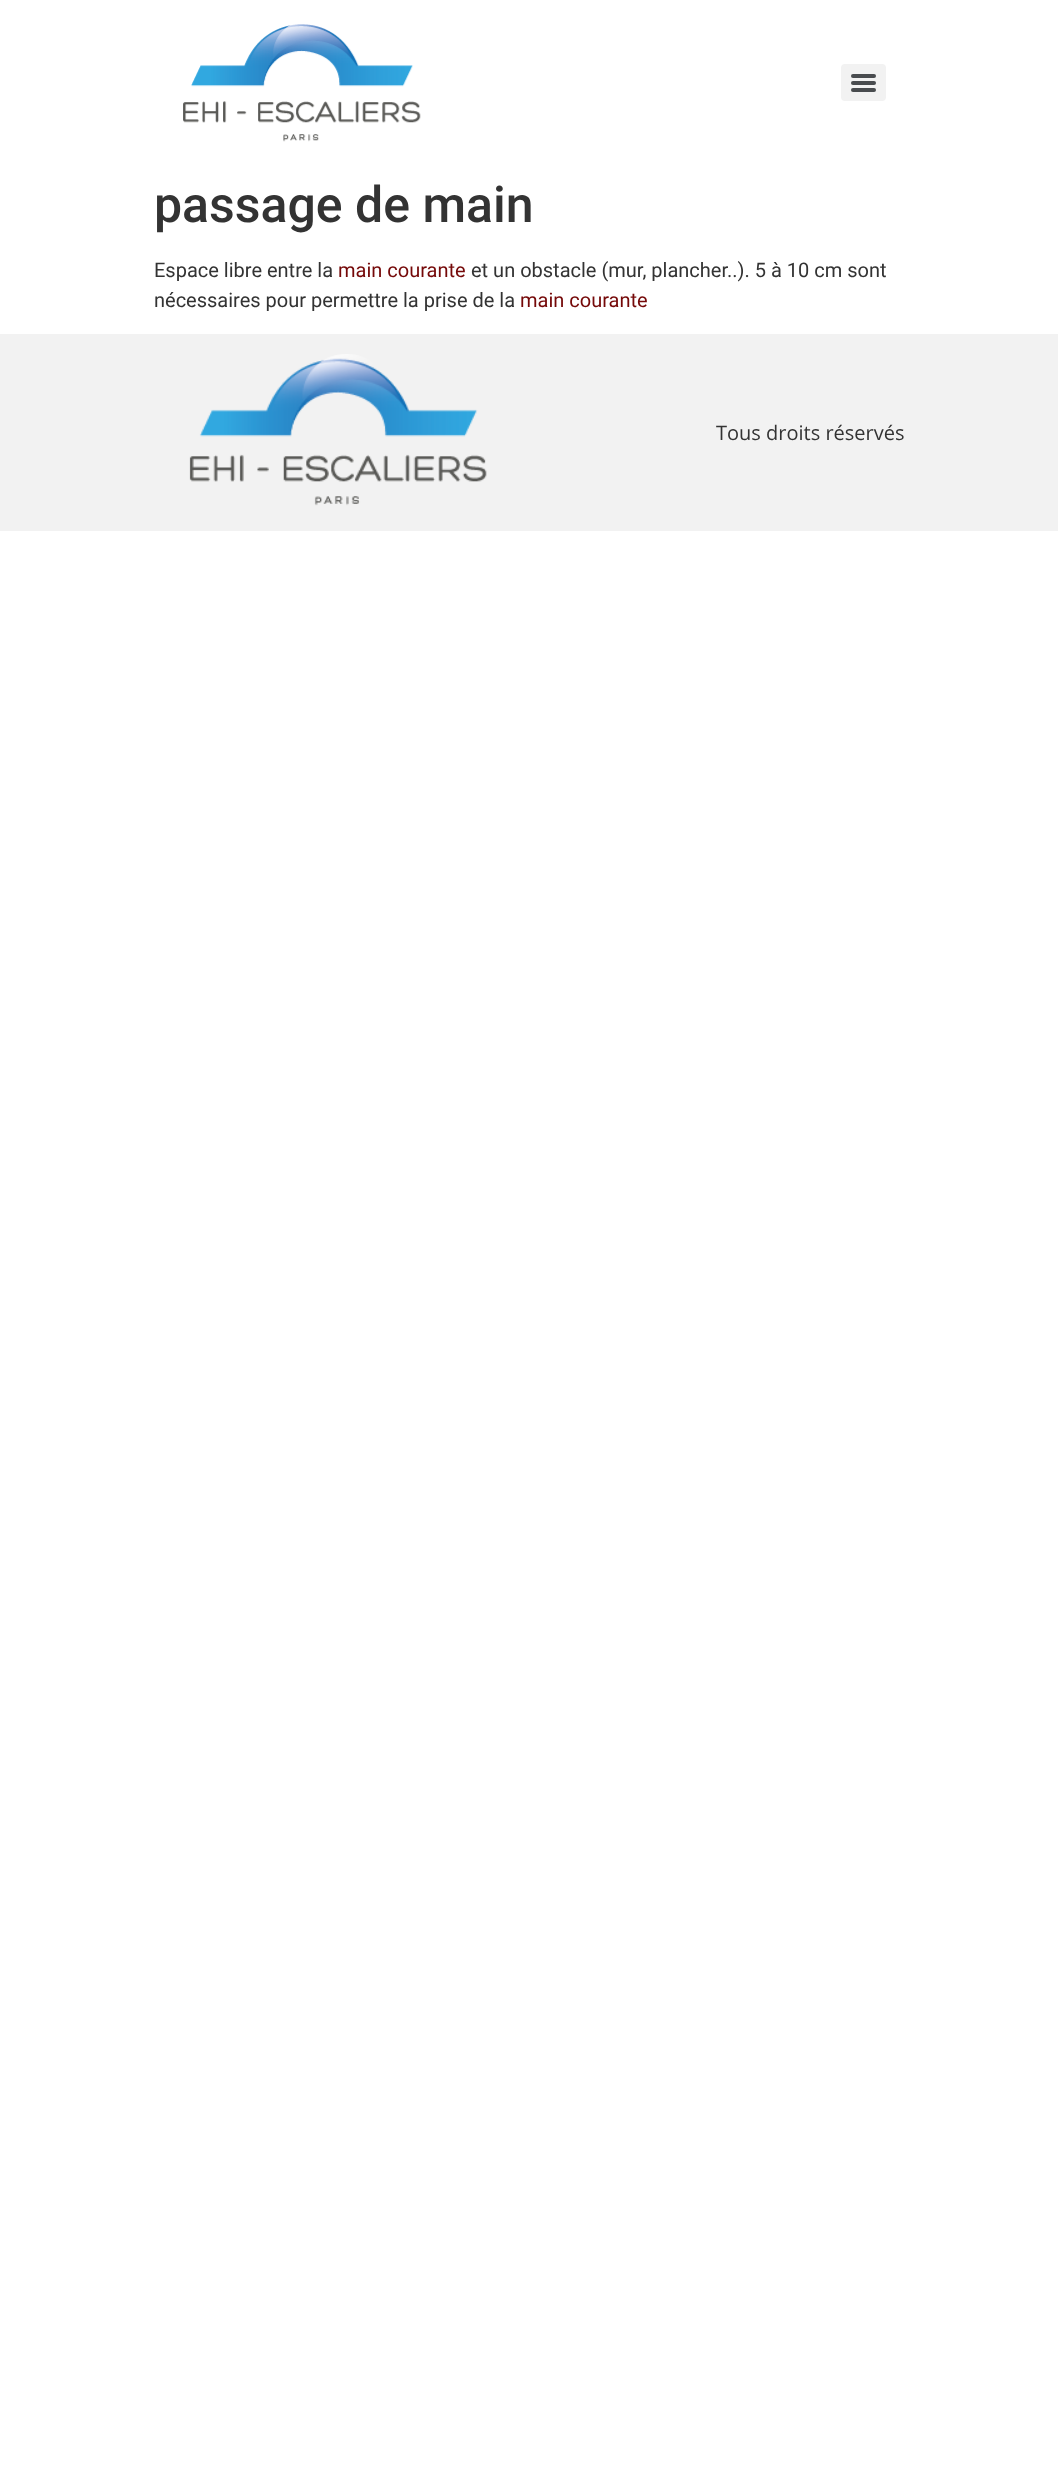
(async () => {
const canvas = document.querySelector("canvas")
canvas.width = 1058
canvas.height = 2480
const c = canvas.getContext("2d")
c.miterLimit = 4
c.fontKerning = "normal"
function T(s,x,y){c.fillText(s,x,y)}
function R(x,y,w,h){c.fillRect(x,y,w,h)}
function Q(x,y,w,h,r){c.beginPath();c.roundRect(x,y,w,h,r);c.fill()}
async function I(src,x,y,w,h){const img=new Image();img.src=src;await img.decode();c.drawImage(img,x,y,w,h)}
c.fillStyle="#fff"
R(0,0,1058,2480)
await I("1.png",183,24,238,118)
c.fillStyle="#f2f2f2"
Q(841,64,45,37,4)
c.fillStyle="#494c4f"
Q(851,81,25,4,2)
Q(851,74,25,4,2)
Q(851,88,25,4,2)
c.font="500 50px Roboto"
c.fillStyle="#333"
T("passage de main",154,222)
c.font="20px Roboto"
T("Espace libre entre la",154,277)
c.fillStyle="#750909"
T("main courante",338,277)
c.fillStyle="#333"
T("et un obstacle (mur, plancher..). 5 à 10 cm sont",471,277)
T("nécessaires pour permettre la prise de la",154,307)
c.fillStyle="#750909"
T("main courante",520,307)
c.fillStyle="#f2f2f2"
R(0,334,1058,197)
await I("2.png",189,354,298,152)
c.font="20px Open Sans"
c.fillStyle="#333"
T("Tous droits réservés",716,440)
})()
